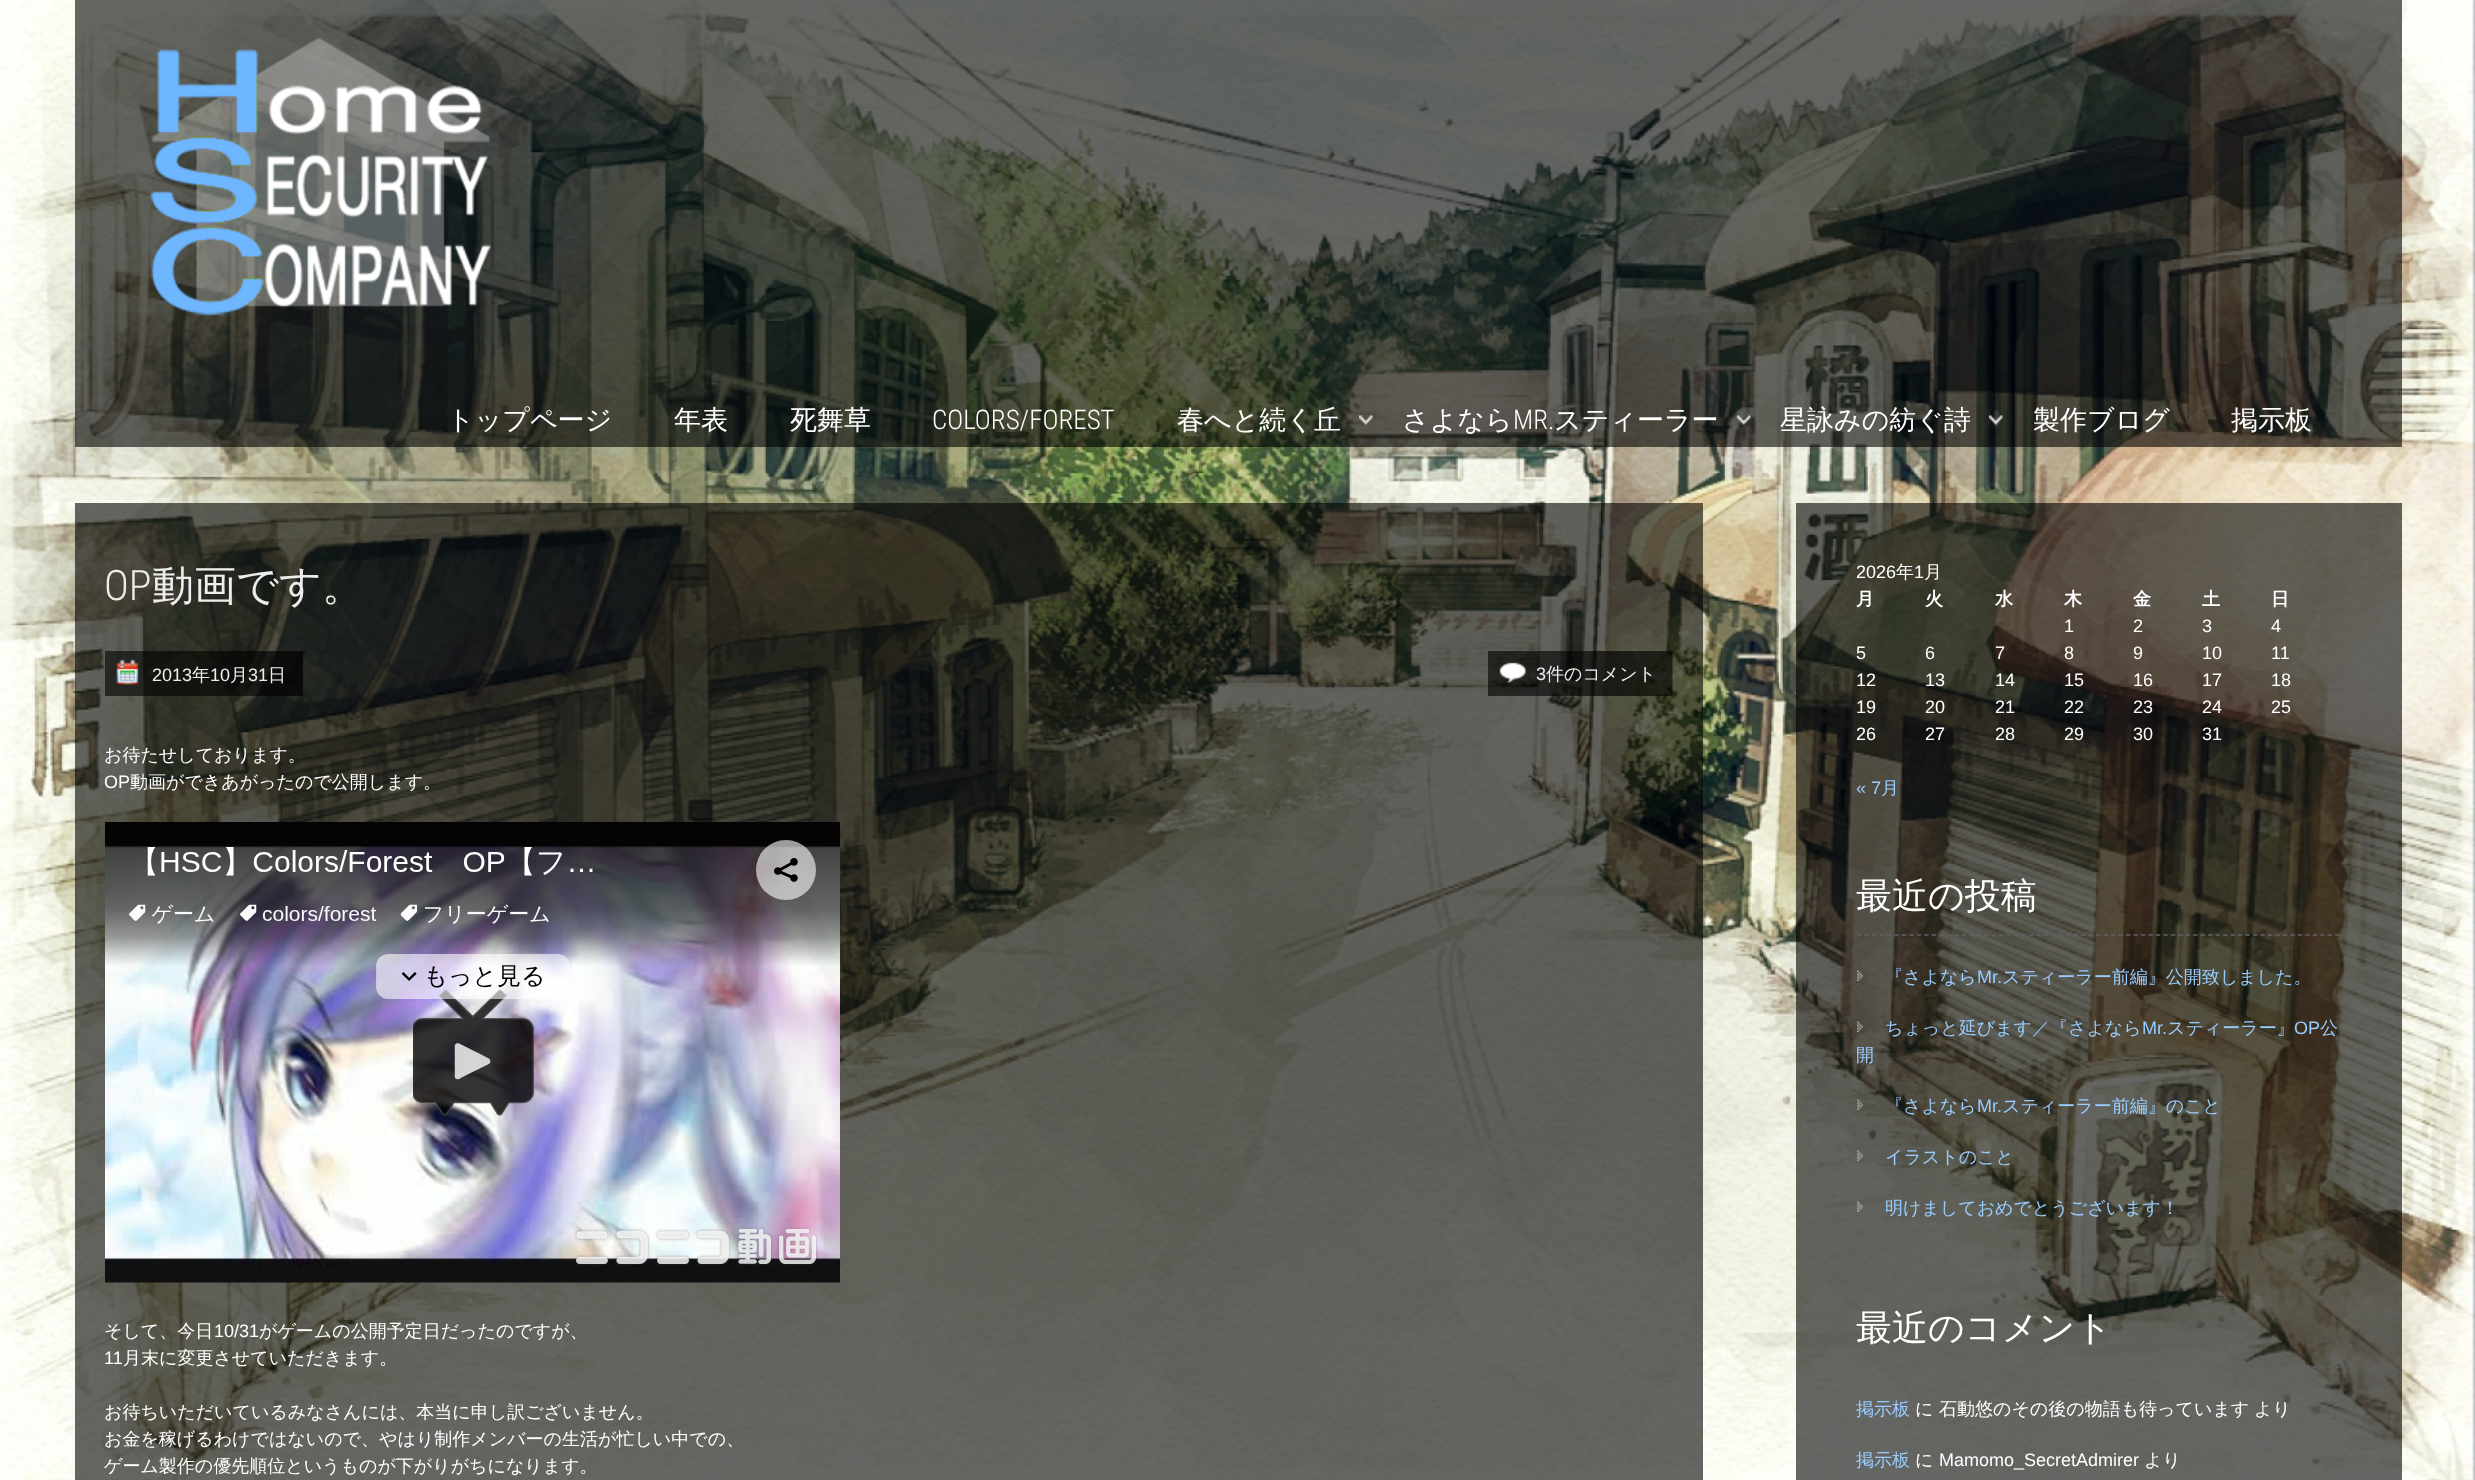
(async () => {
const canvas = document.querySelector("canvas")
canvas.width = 2475
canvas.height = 1480
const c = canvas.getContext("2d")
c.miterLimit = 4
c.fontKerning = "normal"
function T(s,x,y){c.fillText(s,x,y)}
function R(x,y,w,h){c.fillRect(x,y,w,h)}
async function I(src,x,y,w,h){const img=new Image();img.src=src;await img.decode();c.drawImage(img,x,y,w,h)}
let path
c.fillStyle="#fff"
R(0,0,2475,1480)
await I("1.png",0,1479,2475,1)
await I("2.png",0,0,2475,1480)
c.fillStyle="#00000099"
R(75,0,2327,447)
await I("3.png",149,37,342,279)
c.font="500 27px WenQuanYi Zen Hei"
c.fillStyle="#fff"
T("トップページ",447,429)
T("年表",674,429)
T("死舞草",790,429)
c.font="300 27px Roboto Condensed"
T("COLORS/FOREST",932,429)
await I("4.png",1359,415,14,10)
c.font="500 27px WenQuanYi Zen Hei"
T("春へと続く丘",1177,429)
await I("5.png",1737,415,14,10)
T("さよなら",1402,429)
c.font="300 27px Roboto Condensed"
T("MR.",1513,429)
c.font="500 27px WenQuanYi Zen Hei"
T("スティーラー",1554,429)
await I("6.png",1989,415,14,10)
T("星詠みの紡ぐ詩",1780,429)
T("製作ブログ",2033,429)
T("掲示板",2231,429)
c.fillStyle="#00000099"
R(75,503,1628,977)
c.font="300 42px Roboto Condensed"
c.fillStyle="#eeeded"
T("OP",104,600)
c.font="500 42px WenQuanYi Zen Hei"
T("動画です。",152,600)
await I("7.png",105,651,198,45)
c.font="18px Liberation Sans"
T("2013",152,681)
c.font="500 18px WenQuanYi Zen Hei"
T("年",192,681)
c.font="18px Liberation Sans"
T("10",210,681)
c.font="500 18px WenQuanYi Zen Hei"
T("月",230,681)
c.font="18px Liberation Sans"
T("31",248,681)
c.font="500 18px WenQuanYi Zen Hei"
T("日",268,681)
await I("8.png",1488,651,185,45)
c.font="18px Liberation Sans"
T("3",1536,680)
c.font="500 18px WenQuanYi Zen Hei"
T("件のコメント",1546,680)
c.fillStyle="#fff"
T("お待たせしております。",104,761)
c.font="18px Liberation Sans"
T("OP",104,788)
c.font="500 18px WenQuanYi Zen Hei"
T("動画ができあがったので公開します。",130,788)
await I("9.png",105,822,735,461)
T("そして、今日",104,1337)
c.font="18px Liberation Sans"
T("10/31",214,1337)
c.font="500 18px WenQuanYi Zen Hei"
T("がゲームの公開予定日だったのですが、",259,1337)
c.font="18px Liberation Sans"
T("11",104,1364)
c.font="500 18px WenQuanYi Zen Hei"
T("月末に変更させていただきます。",123,1364)
T("お待ちいただいているみなさんには、本当に申し訳ございません。",104,1418)
T("お金を稼げるわけではないので、やはり制作メンバーの生活が忙しい中での、",104,1445)
T("ゲーム製作の優先順位というものが下がりがちになります。",104,1472)
c.fillStyle="#00000099"
R(1796,503,606,977)
c.font="18px Liberation Sans"
c.fillStyle="#fff"
T("2026",1856,578)
c.font="500 18px WenQuanYi Zen Hei"
T("年",1896,578)
c.font="18px Liberation Sans"
T("1",1914,578)
c.font="500 18px WenQuanYi Zen Hei"
T("月",1924,578)
c.font="bold 18px WenQuanYi Zen Hei"
T("月",1856,605)
T("火",1925,605)
T("水",1995,605)
T("木",2064,605)
T("金",2133,605)
T("土",2202,605)
T("日",2271,605)
c.font="18px Liberation Sans"
T("1",2064,632)
T("2",2133,632)
T("3",2202,632)
T("4",2271,632)
T("5",1856,659)
T("6",1925,659)
T("7",1995,659)
T("8",2064,659)
T("9",2133,659)
T("10",2202,659)
T("11",2271,659)
T("12",1856,686)
T("13",1925,686)
T("14",1995,686)
T("15",2064,686)
T("16",2133,686)
T("17",2202,686)
T("18",2271,686)
T("19",1856,713)
T("20",1925,713)
T("21",1995,713)
T("22",2064,713)
T("23",2133,713)
T("24",2202,713)
T("25",2271,713)
T("26",1856,740)
T("27",1925,740)
T("28",1995,740)
T("29",2064,740)
T("30",2133,740)
T("31",2202,740)
c.fillStyle="#9cf"
T("« 7",1856,794)
c.font="500 18px WenQuanYi Zen Hei"
T("月",1881,794)
path = new Path2D("M1857 935h483")
c.strokeStyle="#606266"
c.lineWidth=1.5
c.setLineDash([4.5,2.97])
c.stroke(path)
c.font="500 36px WenQuanYi Zen Hei"
c.fillStyle="#fff"
T("最近の投稿",1856,908)
await I("10.png",1857,970,6,11)
c.font="500 18px WenQuanYi Zen Hei"
c.fillStyle="#9cf"
T("『さよなら",1885,983)
c.font="18px Liberation Sans"
T("Mr.",1977,983)
c.font="500 18px WenQuanYi Zen Hei"
T("スティーラー前編』公開致しました。",2002,983)
await I("11.png",1857,1021,6,11)
T("ちょっと延びます／『さよなら",1885,1034)
c.font="18px Liberation Sans"
T("Mr.",2142,1034)
c.font="500 18px WenQuanYi Zen Hei"
T("スティーラー』",2167,1034)
c.font="18px Liberation Sans"
T("OP",2294,1034)
c.font="500 18px WenQuanYi Zen Hei"
T("公",2320,1034)
T("開",1856,1061)
await I("12.png",1857,1099,6,11)
T("『さよなら",1885,1112)
c.font="18px Liberation Sans"
T("Mr.",1977,1112)
c.font="500 18px WenQuanYi Zen Hei"
T("スティーラー前編』のこと",2002,1112)
await I("13.png",1857,1150,6,11)
T("イラストのこと",1885,1163)
await I("14.png",1857,1201,6,11)
T("明けましておめでとうございます！",1885,1214)
path = new Path2D("M1857 1367h483")
c.stroke(path)
c.font="500 36px WenQuanYi Zen Hei"
c.fillStyle="#fff"
T("最近のコメント",1856,1340)
c.font="500 18px WenQuanYi Zen Hei"
c.fillStyle="#9cf"
T("掲示板",1856,1415)
c.fillStyle="#fff"
T("に",1915,1415)
T("石動悠のその後の物語も待っています",1939,1415)
T("より",2254,1415)
c.fillStyle="#9cf"
T("掲示板",1856,1466)
c.fillStyle="#fff"
T("に",1915,1466)
c.font="18px Liberation Sans"
T("Mamomo_SecretAdmirer",1939,1466)
c.font="500 18px WenQuanYi Zen Hei"
T("より",2144,1466)
})()
